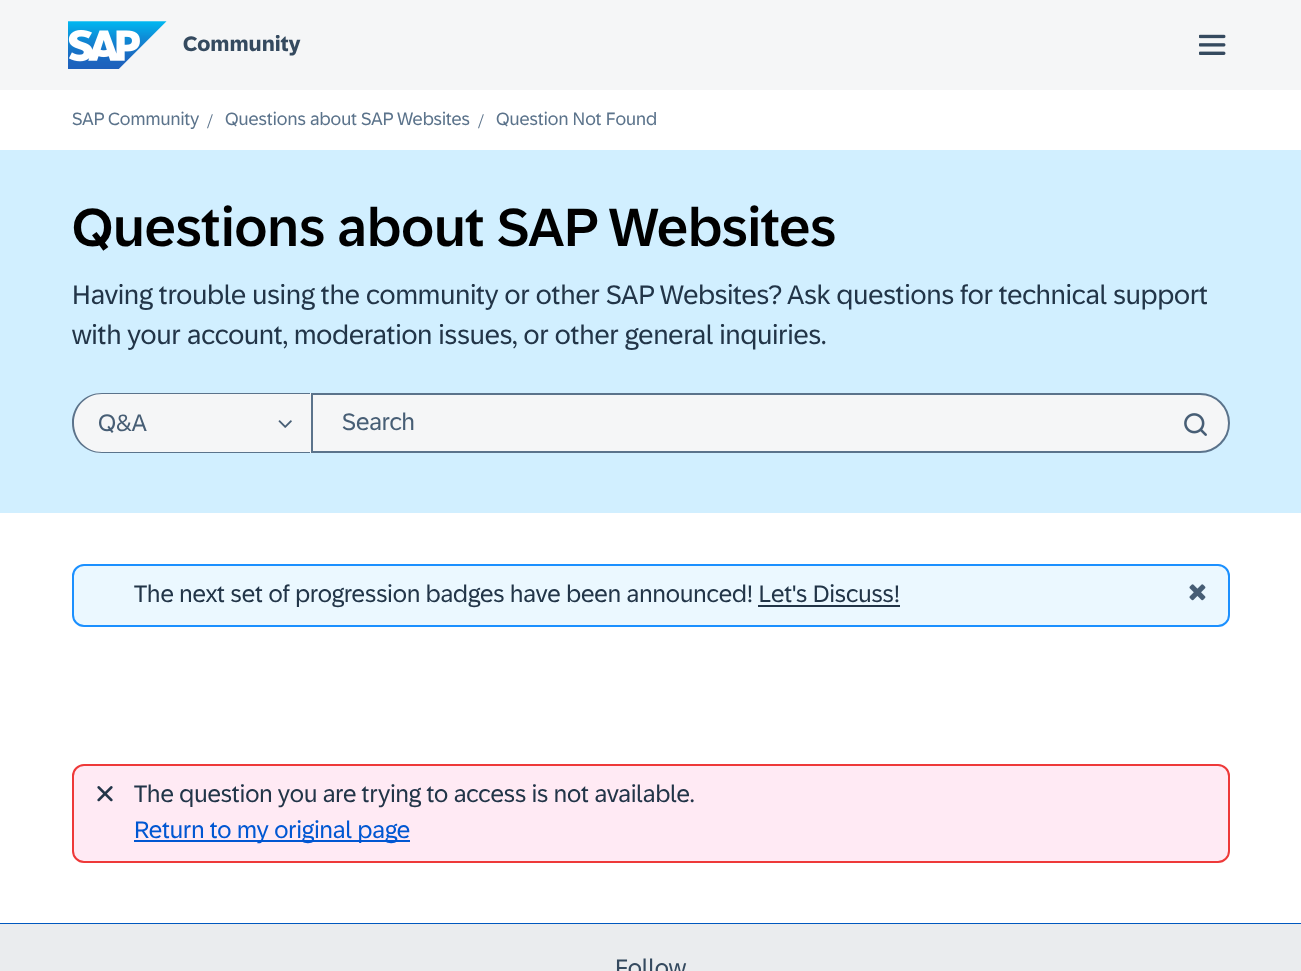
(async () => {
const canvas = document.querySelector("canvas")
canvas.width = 1301
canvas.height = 971
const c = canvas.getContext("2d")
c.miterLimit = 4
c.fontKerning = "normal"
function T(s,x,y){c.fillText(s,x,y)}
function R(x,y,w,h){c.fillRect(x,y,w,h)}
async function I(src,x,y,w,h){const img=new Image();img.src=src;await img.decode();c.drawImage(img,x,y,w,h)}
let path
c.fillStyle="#fff"
R(0,0,1301,971)
c.fillStyle="#f5f6f7"
R(0,0,1301,90)
await I("1.png",68,21,99,48)
c.font="bold 21px '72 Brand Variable'"
c.fillStyle="#354a5f"
T("Community",183,51)
await I("2.png",1199,34,27,21)
c.font="18px '72 Brand Variable'"
c.fillStyle="#5b738b"
T("SAP Community",72,125)
c.font="21px Liberation Serif"
T("/",207,128)
c.font="18px '72 Brand Variable'"
T("Questions about SAP Websites",225,125)
c.font="21px Liberation Serif"
T("/",478,128)
c.font="18px '72 Brand Variable'"
T("Question Not Found",496,125)
c.fillStyle="#d1efff"
R(0,150,1301,363)
c.font="500 54px '72 Brand Variable'"
c.fillStyle="#000"
T("Questions about SAP Websites",72,246)
c.font="27px '72 Brand Variable'"
c.fillStyle="#223548"
T("Having trouble using the community or other SAP Websites? Ask questions for technical support",72,304)
T("with your account, moderation issues, or other general inquiries.",72,344)
c.fillStyle="#f5f6f7"
c.beginPath()
c.roundRect(72,393,239,60,[30,0,0,30])
c.fill()
c.fillStyle="#5b738b"
path = new Path2D("M102 393h208v60h-208c-17 0-30-13-30-30c0-17 13-30 30-30zm0 1h208v58h-208c-16 0-28-13-28-29c0-16 12-29 28-29z")
c.fill(path,"evenodd")
c.font="24px '72 Brand Variable'"
c.fillStyle="#475e75"
T("Q&A",98,431)
await I("3.png",278,420,14,8)
c.fillStyle="#f5f6f7"
c.beginPath()
c.roundRect(312,394,917,58,[0,29,29,0])
c.fill()
c.strokeStyle="#5b738b"
c.lineWidth=2
c.stroke()
c.fillStyle="#475e75"
T("Search",342,430)
await I("4.png",1184,413,23,23)
c.fillStyle="#ebf8ff"
c.beginPath()
c.roundRect(73,565,1156,61,11)
c.fill()
c.strokeStyle="#1b90ff"
c.stroke()
c.fillStyle="#223548"
T("The next set of progression badges have been announced! Let's Discuss!",134,602)
R(758,605,142,2)
await I("5.png",1189,584,17,17)
c.fillStyle="#ffeaf4"
c.beginPath()
c.roundRect(73,765,1156,97,11)
c.fill()
c.strokeStyle="#ee3939"
c.stroke()
await I("6.png",97,786,16,16)
c.fillStyle="#223548"
T("The question you are trying to access is not available.",134,802)
c.fillStyle="#0057d2"
R(134,840,276,2)
T("Return to my original page",134,838)
c.fillStyle="#0058bf"
R(0,923,1301,1)
c.fillStyle="#eaecee"
R(0,924,1301,47)
c.fillStyle="#354a5f"
T("Follow",615,976)
})()
